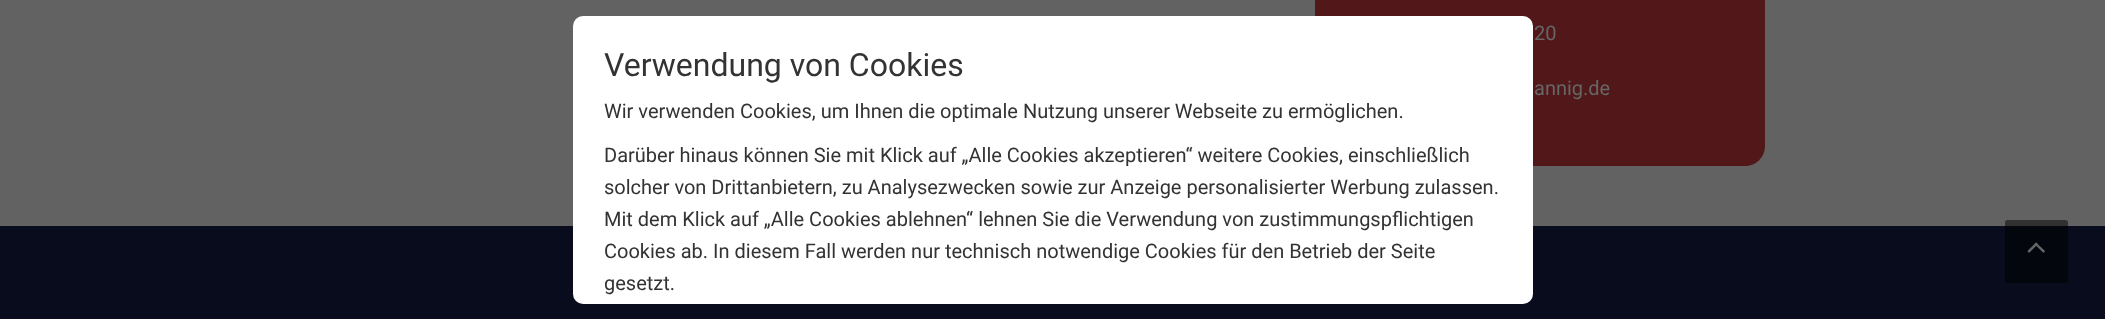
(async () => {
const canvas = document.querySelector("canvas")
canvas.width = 2105
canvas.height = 319
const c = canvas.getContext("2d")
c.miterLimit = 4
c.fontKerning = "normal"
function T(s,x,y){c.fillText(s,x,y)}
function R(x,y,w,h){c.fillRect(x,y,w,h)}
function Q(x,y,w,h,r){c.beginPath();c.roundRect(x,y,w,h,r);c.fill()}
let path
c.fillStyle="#626262"
R(0,0,2105,319)
c.fillStyle="#521718"
Q(1315,-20,450,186,20)
c.fillStyle="#080c1d"
R(0,226,2105,93)
c.fillStyle="#fff"
Q(573,16,960,288,10)
c.font="32px Roboto"
c.fillStyle="#333"
T("Verwendung von Cookies",604,76)
c.font="20px Roboto"
T("Wir verwenden Cookies, um Ihnen die optimale Nutzung unserer Webseite zu ermöglichen.",604,118)
T("Darüber hinaus können Sie mit Klick auf „Alle Cookies akzeptieren“ weitere Cookies, einschließlich",604,162)
T("solcher von Drittanbietern, zu Analysezwecken sowie zur Anzeige personalisierter Werbung zulassen.",604,194)
T("Mit dem Klick auf „Alle Cookies ablehnen“ lehnen Sie die Verwendung von zustimmungspflichtigen",604,226)
T("Cookies ab. In diesem Fall werden nur technisch notwendige Cookies für den Betrieb der Seite",604,258)
T("gesetzt.",604,290)
c.fillStyle="#4e1819"
R(1378,6,325,1)
R(1533,61,170,1)
c.fillStyle="#666"
T("20",1534,40)
T("annig.de",1534,95)
c.fillStyle="#00000080"
Q(2005,220,63,63,2.5)
c.fillStyle="#666"
path = new Path2D("M2036 242.5l9 8.5l-1.5 2l-9-9z")
c.fill(path)
path = new Path2D("M2036 242.5l2 1.5l-9 9l-1.5-2z")
c.fill(path)
})()
